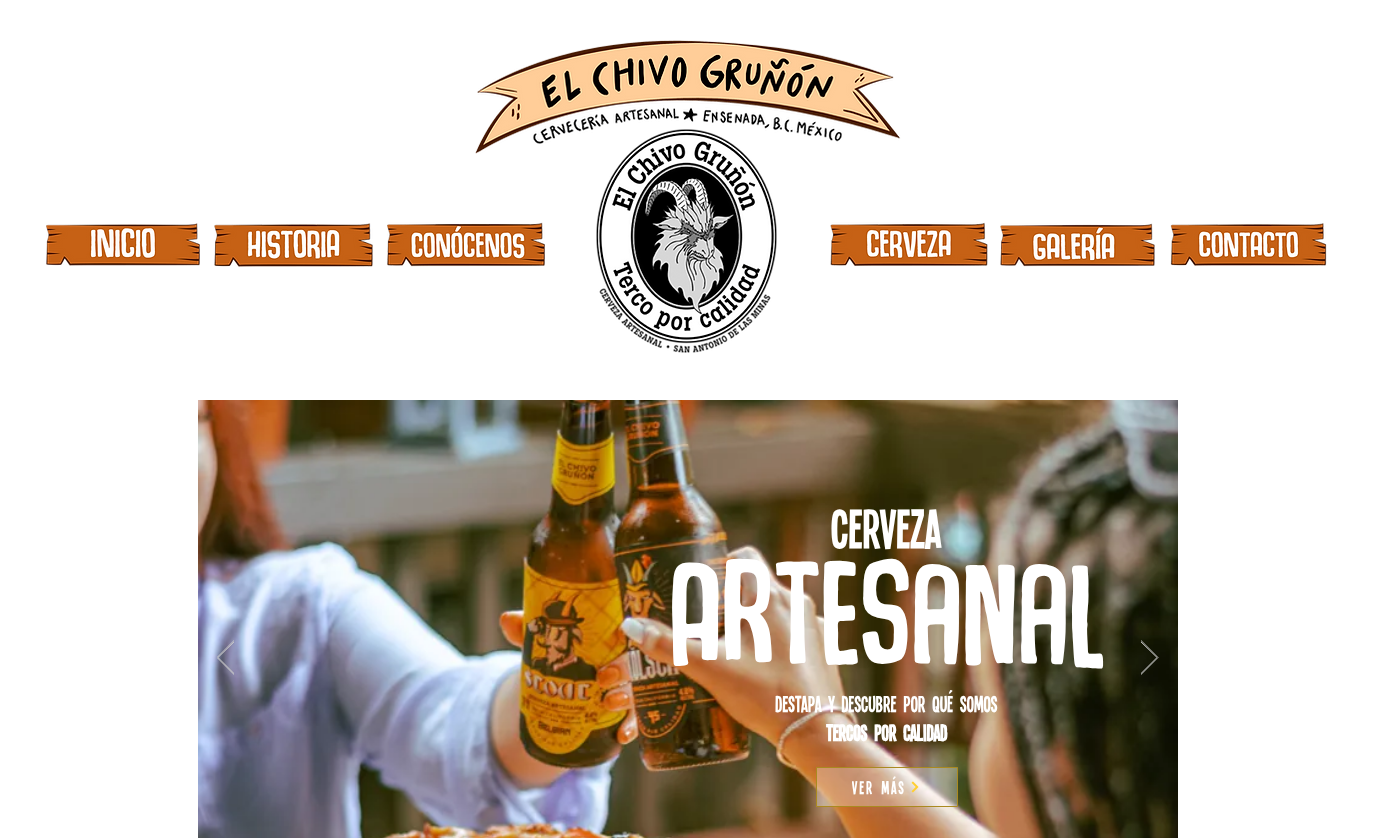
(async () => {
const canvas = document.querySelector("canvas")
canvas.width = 1375
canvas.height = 838
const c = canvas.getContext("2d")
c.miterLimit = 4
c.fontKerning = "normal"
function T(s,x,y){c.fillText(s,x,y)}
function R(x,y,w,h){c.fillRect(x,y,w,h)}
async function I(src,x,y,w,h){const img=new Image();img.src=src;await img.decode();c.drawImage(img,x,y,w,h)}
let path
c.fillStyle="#fff"
R(0,0,1375,838)
await I("1.png",475,40,426,114)
await I("2.png",46,223,154,43)
await I("3.png",214,223,159,44)
await I("4.png",387,222,158,45)
await I("5.png",596,129,181,224)
await I("6.png",830,222,158,44)
await I("7.png",1000,223,155,44)
await I("8.png",1170,223,157,43)
await I("9.png",198,400,980,438)
c.save()
c.beginPath()
c.rect(217,640,17,35)
c.clip()
path = new Path2D("M234.5 675l-17.5-17.5l17.5-17.5l.5 1l-17 16.5l17 17z")
c.strokeStyle="#ccc"
c.lineWidth=0.9
c.stroke(path)
c.restore()
c.font="60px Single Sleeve"
T("cerveza",831,548)
c.font="100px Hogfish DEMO"
T("Artesanal",669,664)
c.font="25px Single Sleeve"
T("Destapa y descubre por qué somos",775,712)
c.font="bold 25px Single Sleeve"
T("tercos por calidad",826,741)
c.fillStyle="#ffffff4d"
c.beginPath()
c.rect(816.5,767.5,141,39)
c.fill()
c.strokeStyle="#aa8a20"
c.stroke()
c.save()
c.beginPath()
c.rect(852,776,53,23)
c.clip()
c.letterSpacing="2px"
c.font="20px Single Sleeve"
c.fillStyle="#fff"
T("Ver más",852,794)
c.restore()
await I("10.png",911,781,8,12)
c.save()
c.beginPath()
c.rect(1141,640,18,35)
c.clip()
path = new Path2D("M1140.5 675l17.5-17.5l-17.5-17.5l-.5 1l17 16.5l-17 17z")
c.strokeStyle="#ccc"
c.lineWidth=0.9
c.stroke(path)
c.restore()
})()
